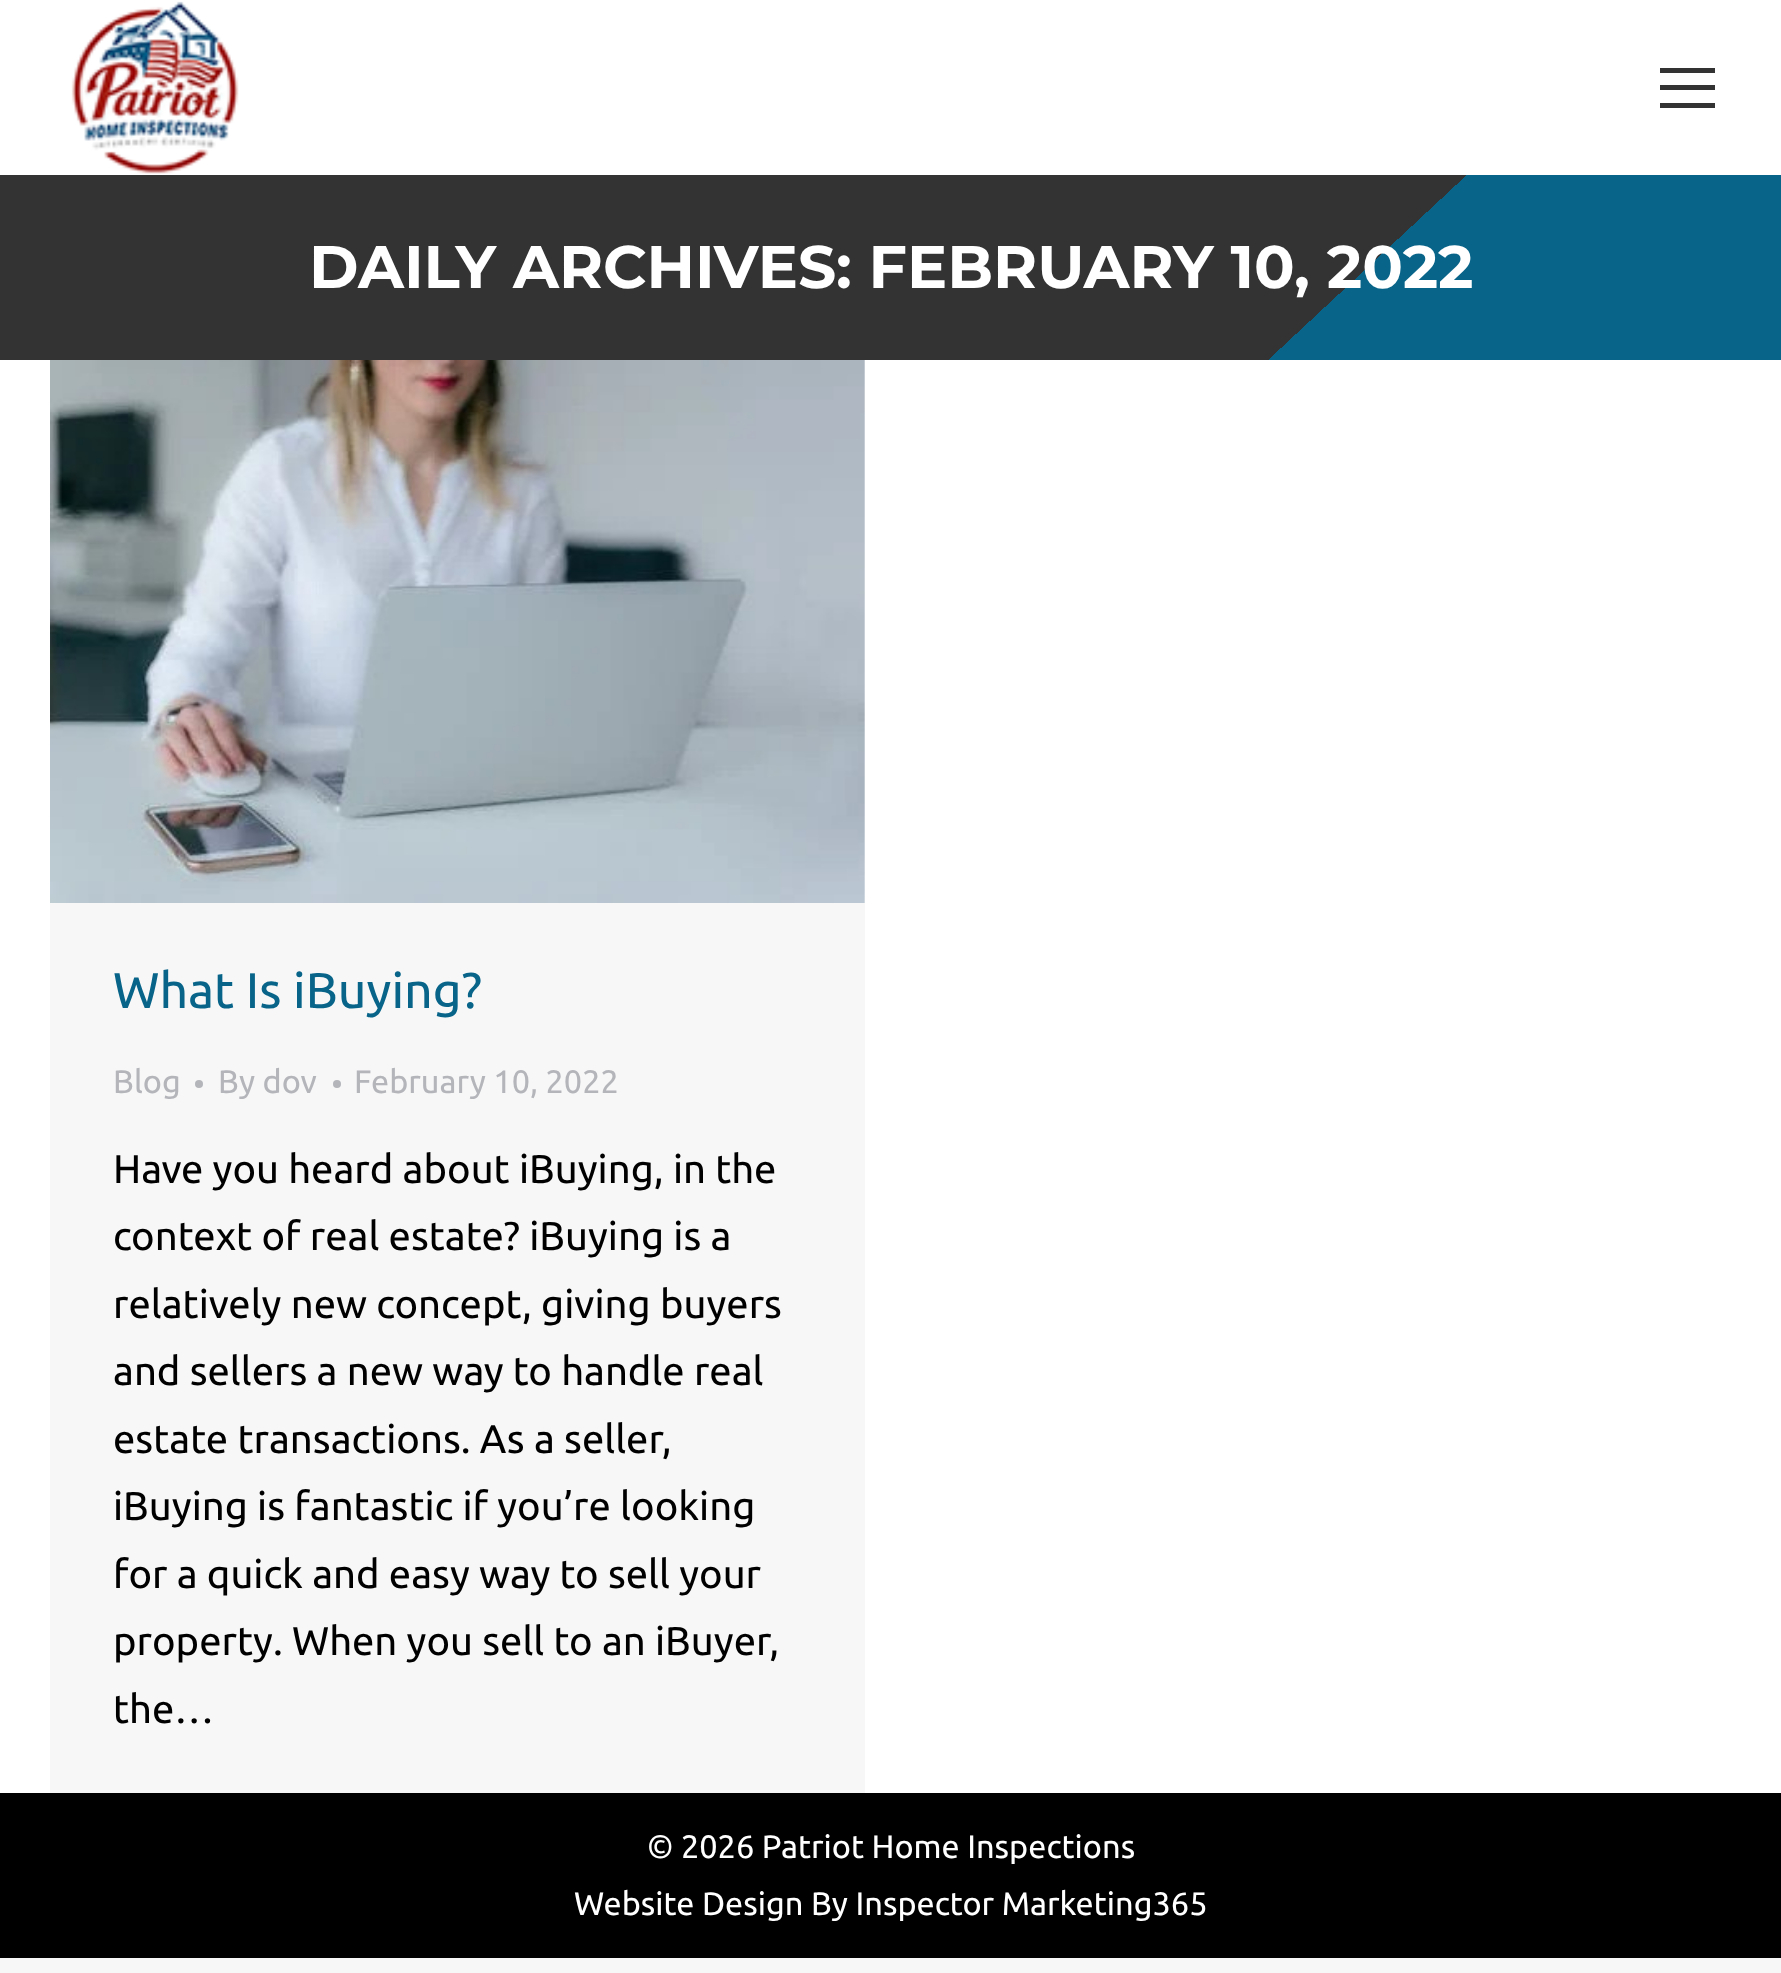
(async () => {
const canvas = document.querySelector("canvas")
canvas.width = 1781
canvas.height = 1973
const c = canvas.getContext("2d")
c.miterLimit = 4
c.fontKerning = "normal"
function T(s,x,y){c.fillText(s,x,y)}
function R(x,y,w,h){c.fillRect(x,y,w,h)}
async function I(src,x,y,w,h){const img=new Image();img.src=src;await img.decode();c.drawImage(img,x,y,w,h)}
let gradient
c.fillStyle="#f7f7f7"
R(0,0,1781,1973)
c.fillStyle="#fff"
R(0,0,1781,1793)
await I("1.png",71,1,168,173)
c.fillStyle="#333"
R(1660,85,55,5)
R(1660,68,55,5)
R(1660,103,55,5)
gradient = c.createLinearGradient(431,-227,1352,762)
gradient.addColorStop(.74,"#333")
gradient.addColorStop(.74,"#086489")
c.fillStyle = gradient
R(0,175,1781,185)
c.font="bold 60px Montserrat"
c.fillStyle="#fff"
T("DAILY ARCHIVES: FEBRUARY 10, 2022",309,288)
c.fillStyle="#f7f7f7"
R(50,360,815,1433)
await I("2.png",50,360,815,543)
c.font="50px Ubuntu"
c.fillStyle="#086489"
T("What Is iBuying?",113,1008)
c.font="32.5px Ubuntu"
c.fillStyle="#b4b5bb"
T("Blog",113,1093)
c.beginPath()
c.arc(199,1084,4,0,7)
c.fill()
T("By dov",218,1093)
c.beginPath()
c.arc(337,1084,4,0,7)
c.fill()
T("February 10, 2022",354,1093)
c.font="40px Ubuntu"
c.fillStyle="#000"
T("Have you heard about iBuying, in the",113,1183)
T("context of real estate? iBuying is a",113,1250)
T("relatively new concept, giving buyers",113,1318)
T("and sellers a new way to handle real",113,1385)
T("estate transactions. As a seller,",113,1453)
T("iBuying is fantastic if you’re looking",113,1520)
T("for a quick and easy way to sell your",113,1588)
T("property. When you sell to an iBuyer,",113,1655)
T("the…",113,1723)
R(0,1793,1781,165)
c.font="32.5px Ubuntu"
c.fillStyle="#fff"
T("© 2026 Patriot Home Inspections",647,1858)
T("Website Design By Inspector Marketing365",574,1915)
})()
